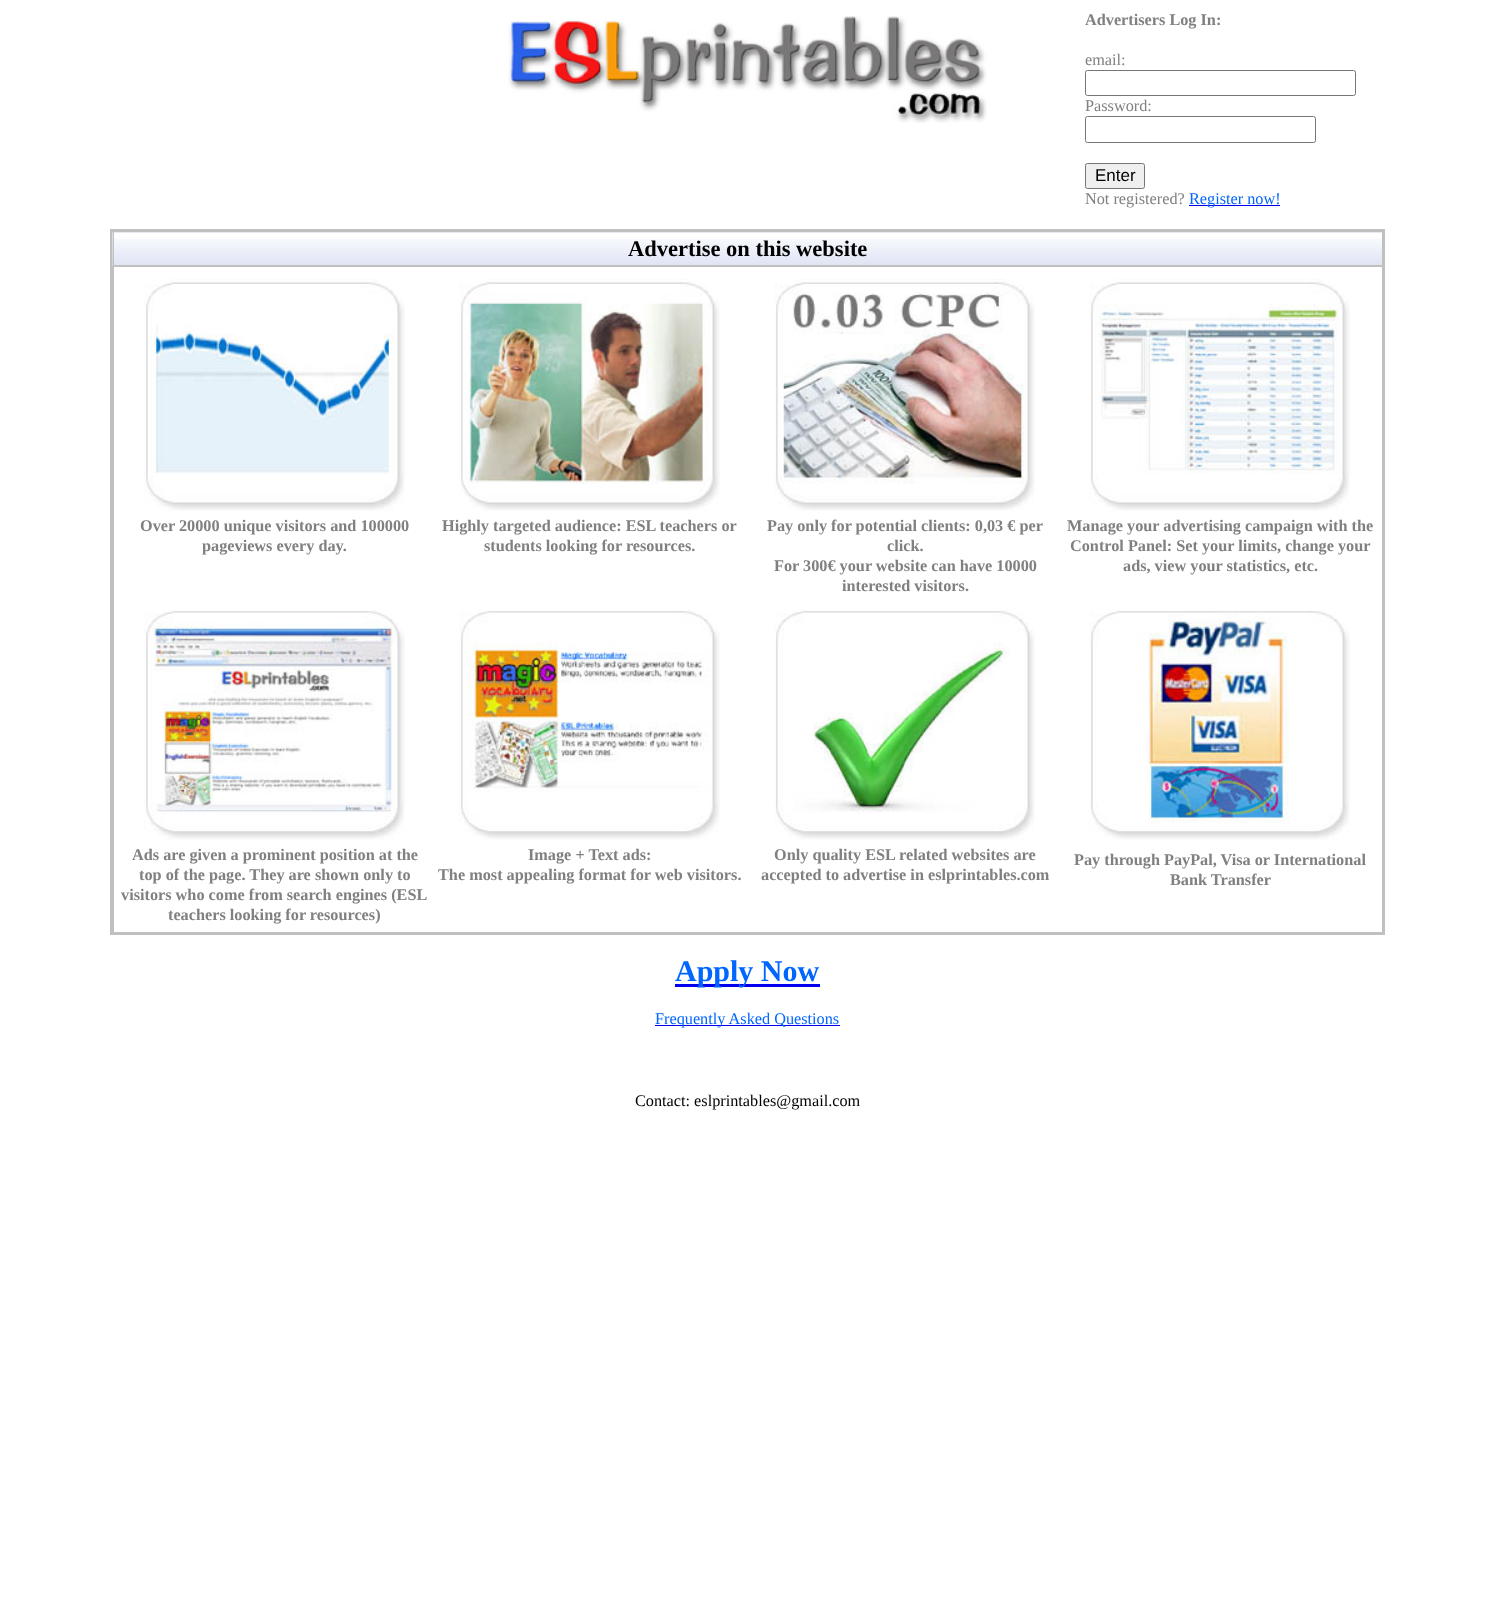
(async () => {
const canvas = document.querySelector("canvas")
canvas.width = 1495
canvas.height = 1622
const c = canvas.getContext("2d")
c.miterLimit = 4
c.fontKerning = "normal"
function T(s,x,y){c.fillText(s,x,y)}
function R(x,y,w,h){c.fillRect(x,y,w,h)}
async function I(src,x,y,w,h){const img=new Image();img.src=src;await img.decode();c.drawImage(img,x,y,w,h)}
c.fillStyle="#fff"
R(0,0,1495,1622)
await I("1.png",508,16,479,107)
c.font="bold 16.25px Liberation Serif"
c.fillStyle="#808080"
T("Advertisers Log In:",1085,25)
c.font="16.25px Liberation Serif"
T("email:",1085,65)
c.beginPath()
c.roundRect(1085.5,70.5,270,25,2)
c.strokeStyle="#767676"
c.stroke()
T("Password:",1085,111)
c.beginPath()
c.roundRect(1085.5,116.5,230,26,2)
c.stroke()
c.fillStyle="#efefef"
c.beginPath()
c.roundRect(1085.5,163.5,59,25,2)
c.fill()
c.stroke()
c.font="17px Liberation Sans"
c.fillStyle="#000"
T("Enter",1095,181)
c.font="16.25px Liberation Serif"
c.fillStyle="#808080"
T("Not registered?",1085,204)
c.fillStyle="#00e"
R(1189,205,91,1)
c.fillStyle="#06f"
T("Register now!",1189,204)
c.strokeStyle="#c0c0c0"
c.lineWidth=3
c.strokeRect(111.5,230.5,1272,703)
await I("2.png",112,231,1270,36)
c.lineWidth=1
c.strokeRect(113.5,231.5,1269,34)
c.font="bold 22.5px Liberation Serif"
c.fillStyle="#000"
T("Advertise on this website",628,256)
c.strokeRect(113.5,266.5,1269,666)
await I("3.png",144,279,261,232)
c.font="bold 16.25px Liberation Serif"
c.fillStyle="#808080"
T("Over 20000 unique visitors and 100000",140,531)
T("pageviews every day.",202,551)
await I("4.png",459,279,261,232)
T("Highly targeted audience: ESL teachers or",442,531)
T("students looking for resources.",484,551)
await I("5.png",774,279,261,232)
T("Pay only for potential clients: 0,03 € per",767,531)
T("click.",887,551)
T("For 300€ your website can have 10000",774,571)
T("interested visitors.",842,591)
await I("6.png",1089,279,261,232)
T("Manage your advertising campaign with the",1067,531)
T("Control Panel: Set your limits, change your",1070,551)
T("ads, view your statistics, etc.",1123,571)
await I("7.png",144,610,261,230)
T("Ads are given a prominent position at the",132,860)
T("top of the page. They are shown only to",139,880)
T("visitors who come from search engines (ESL",121,900)
T("teachers looking for resources)",168,920)
await I("8.png",459,610,261,230)
T("Image + Text ads:",528,860)
T("The most appealing format for web visitors.",438,880)
await I("9.png",774,610,261,230)
T("Only quality ESL related websites are",774,860)
T("accepted to advertise in eslprintables.com",761,880)
await I("10.png",1089,610,261,230)
T("Pay through PayPal, Visa or International",1074,865)
T("Bank Transfer",1170,885)
c.fillStyle="#00e"
R(675,984,145,3)
c.font="bold 30px Liberation Serif"
c.fillStyle="#06f"
T("Apply Now",675,981)
c.fillStyle="#00e"
R(655,1025,185,1)
c.font="16.25px Liberation Serif"
c.fillStyle="#06f"
T("Frequently Asked Questions",655,1024)
c.fillStyle="#000"
T("Contact: eslprintables@gmail.com",635,1106)
})()
